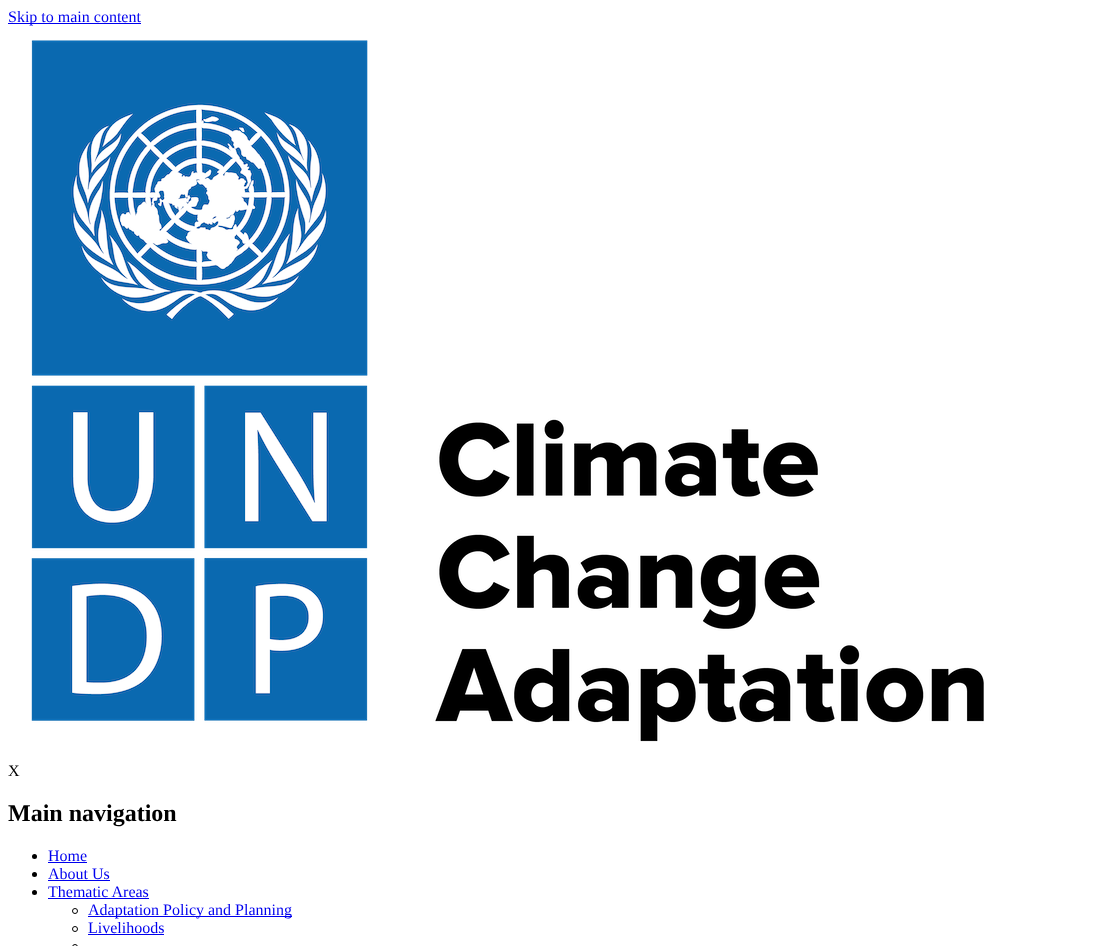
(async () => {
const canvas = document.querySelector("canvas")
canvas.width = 1111
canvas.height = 946
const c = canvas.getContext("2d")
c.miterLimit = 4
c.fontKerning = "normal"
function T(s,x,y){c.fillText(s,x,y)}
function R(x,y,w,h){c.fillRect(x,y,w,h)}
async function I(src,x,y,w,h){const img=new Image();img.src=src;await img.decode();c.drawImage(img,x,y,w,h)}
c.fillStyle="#fff"
R(0,0,1111,946)
c.fillStyle="#00e"
R(8,23,133,1)
c.font="16px Liberation Serif"
T("Skip to main content",8,22)
await I("1.png",31,40,953,702)
c.fillStyle="#000"
T("X",8,776)
c.font="bold 24px Liberation Serif"
T("Main navigation",8,821)
c.beginPath()
c.arc(34.5,856.5,2.5,0,7)
c.fill()
c.font="16px Liberation Serif"
c.fillStyle="#00e"
T("Home",48,861)
R(48,862,39,1)
c.fillStyle="#000"
c.beginPath()
c.arc(34.5,874.5,2.5,0,7)
c.fill()
c.fillStyle="#00e"
T("About Us",48,879)
R(48,880,62,1)
c.fillStyle="#000"
c.beginPath()
c.arc(34.5,892.5,2.5,0,7)
c.fill()
c.fillStyle="#00e"
T("Thematic Areas",48,897)
R(48,898,101,1)
c.beginPath()
c.arc(75,911,2.5,0,7)
c.strokeStyle="#000"
c.stroke()
R(88,916,204,1)
T("Adaptation Policy and Planning",88,915)
c.beginPath()
c.arc(75,929,2.5,0,7)
c.stroke()
T("Livelihoods",88,933)
R(88,934,76,1)
c.beginPath()
c.arc(75,947,2.5,0,7)
c.stroke()
})()
